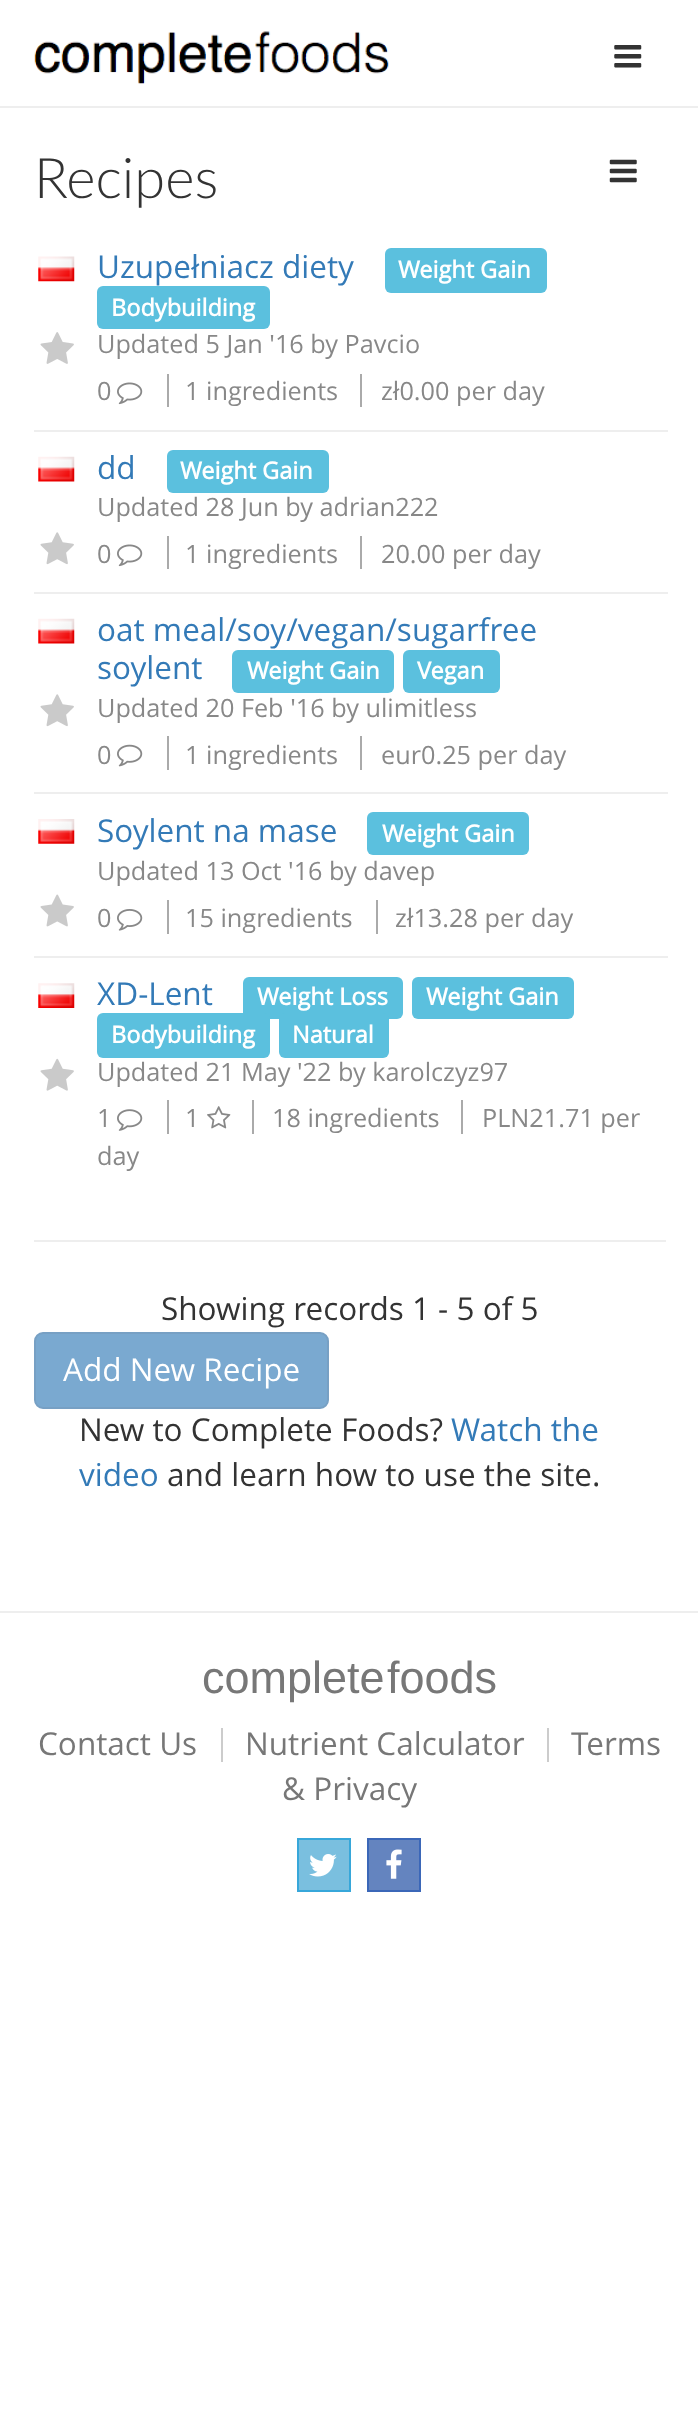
(async () => {
const canvas = document.querySelector("canvas")
canvas.width = 698
canvas.height = 2433
const c = canvas.getContext("2d")
c.miterLimit = 4
c.fontKerning = "normal"
function T(s,x,y){c.fillText(s,x,y)}
function R(x,y,w,h){c.fillRect(x,y,w,h)}
function Q(x,y,w,h,r){c.beginPath();c.roundRect(x,y,w,h,r);c.fill()}
async function I(src,x,y,w,h){const img=new Image();img.src=src;await img.decode();c.drawImage(img,x,y,w,h)}
c.fillStyle="#fff"
R(0,0,698,2433)
await I("1.png",34,31,355,53)
await I("2.png",614,45,28,23)
c.fillStyle="#eee"
R(0,106,698,2)
c.font="300 56px Lato"
c.fillStyle="#333"
T("Recipes",34,198)
await I("3.png",609,159,28,24)
await I("4.png",38,256,37,26)
await I("5.png",40,332,34,32)
c.font="31.5px Open Sans"
c.fillStyle="#337ab7"
T("Uzupełniacz diety",97,278)
c.fillStyle="#5bc0de"
Q(385,248,162,45,6)
c.font="bold 23.5px Open Sans"
c.fillStyle="#fff"
T("Weight Gain",398,278)
c.fillStyle="#5bc0de"
Q(97,286,173,43,6)
c.fillStyle="#fff"
T("Bodybuilding",111,316)
c.font="25.25px Open Sans"
c.fillStyle="#888"
T("Updated 5 Jan '16 by Pavcio",97,353)
T("0",97,400)
await I("6.png",117,382,26,23)
T("1 ingredients",185,400)
c.fillStyle="#aaa"
R(167,374,2,33)
c.fillStyle="#888"
T("zł0.00 per day",381,400)
c.fillStyle="#aaa"
R(360,374,2,33)
await I("7.png",38,456,37,26)
await I("8.png",40,532,34,33)
c.fillStyle="#eee"
R(34,430,634,2)
c.font="31.5px Open Sans"
c.fillStyle="#337ab7"
T("dd",97,479)
c.fillStyle="#5bc0de"
Q(167,450,162,43,6)
c.font="bold 23.5px Open Sans"
c.fillStyle="#fff"
T("Weight Gain",180,479)
c.font="25.25px Open Sans"
c.fillStyle="#888"
T("Updated 28 Jun by adrian222",97,516)
T("0",97,563)
await I("6.png",117,544,26,23)
T("1 ingredients",185,563)
c.fillStyle="#aaa"
R(167,536,2,33)
c.fillStyle="#888"
T("20.00 per day",381,563)
c.fillStyle="#aaa"
R(360,536,2,33)
await I("7.png",38,618,37,26)
await I("8.png",40,694,34,33)
c.fillStyle="#eee"
R(34,592,634,2)
c.font="31.5px Open Sans"
c.fillStyle="#337ab7"
T("oat meal/soy/vegan/sugarfree",97,641)
T("soylent",97,679)
c.fillStyle="#5bc0de"
Q(232,650,162,43,6)
c.font="bold 23.5px Open Sans"
c.fillStyle="#fff"
T("Weight Gain",247,679)
c.fillStyle="#5bc0de"
Q(403,650,97,43,6)
c.fillStyle="#fff"
T("Vegan",417,679)
c.font="25.25px Open Sans"
c.fillStyle="#888"
T("Updated 20 Feb '16 by ulimitless",97,717)
T("0",97,764)
await I("9.png",117,744,26,23)
T("1 ingredients",185,764)
c.fillStyle="#aaa"
R(167,736,2,34)
c.fillStyle="#888"
T("eur0.25 per day",381,764)
c.fillStyle="#aaa"
R(360,736,2,34)
await I("10.png",38,819,37,25)
await I("11.png",40,894,34,33)
c.fillStyle="#eee"
R(34,792,634,2)
c.font="31.5px Open Sans"
c.fillStyle="#337ab7"
T("Soylent na mase",97,842)
c.fillStyle="#5bc0de"
Q(367,812,162,43,6)
c.font="bold 23.5px Open Sans"
c.fillStyle="#fff"
T("Weight Gain",382,842)
c.font="25.25px Open Sans"
c.fillStyle="#888"
T("Updated 13 Oct '16 by davep",97,880)
T("0",97,927)
await I("12.png",117,909,26,22)
T("15 ingredients",185,927)
c.fillStyle="#aaa"
R(167,900,2,34)
c.fillStyle="#888"
T("zł13.28 per day",395,927)
c.fillStyle="#aaa"
R(376,900,2,34)
await I("13.png",38,983,37,25)
await I("14.png",40,1058,34,33)
c.fillStyle="#eee"
R(34,956,634,2)
c.font="31.5px Open Sans"
c.fillStyle="#337ab7"
T("XD-Lent",97,1005)
c.fillStyle="#5bc0de"
Q(243,977,160,42,6)
c.font="bold 23.5px Open Sans"
c.fillStyle="#fff"
T("Weight Loss",257,1005)
c.fillStyle="#5bc0de"
Q(412,977,162,42,6)
c.fillStyle="#fff"
T("Weight Gain",426,1005)
c.fillStyle="#5bc0de"
Q(97,1013,173,45,6)
c.fillStyle="#fff"
T("Bodybuilding",111,1043)
c.fillStyle="#5bc0de"
Q(279,1013,110,45,6)
c.fillStyle="#fff"
T("Natural",292,1043)
c.font="25.25px Open Sans"
c.fillStyle="#888"
T("Updated 21 May '22 by karolczyz97",97,1081)
T("1",97,1127)
await I("15.png",117,1109,26,22)
c.fillStyle="#aaa"
R(167,1100,2,34)
c.fillStyle="#888"
T("1",185,1127)
await I("16.png",207,1106,24,23)
T("18 ingredients",272,1127)
c.fillStyle="#aaa"
R(252,1100,2,34)
c.fillStyle="#888"
T("PLN21.71 per",482,1127)
c.fillStyle="#aaa"
R(461,1100,2,34)
c.fillStyle="#888"
T("day",97,1165)
c.fillStyle="#eee"
R(34,1240,632,2)
c.font="31.5px Open Sans"
c.fillStyle="#333"
T("Showing records 1 - 5 of 5",161,1320)
c.fillStyle="#7aa9d0"
c.beginPath()
c.roundRect(35,1333,293,75,8)
c.fill()
c.strokeStyle="#77a0c4"
c.lineWidth=2
c.stroke()
c.fillStyle="#fff"
T("Add New Recipe",63,1381)
c.fillStyle="#333"
T("New to Complete Foods?",79,1441)
c.fillStyle="#337ab7"
T("Watch the",451,1441)
T("video",79,1486)
c.fillStyle="#333"
T("and learn how to use the site.",167,1486)
c.fillStyle="#eee"
R(0,1611,698,2)
c.font="45px Liberation Sans"
c.fillStyle="#777"
T("complete",202,1693)
T("foods",387,1693)
c.font="31.5px Open Sans"
T("Contact Us",38,1755)
c.fillStyle="#ccc"
R(221,1728,2,34)
c.fillStyle="#777"
T("Nutrient Calculator",245,1755)
c.fillStyle="#ccc"
R(547,1728,2,34)
c.fillStyle="#777"
T("Terms",571,1755)
T("& Privacy",282,1800)
c.fillStyle="#7abfdf"
c.beginPath()
c.rect(298,1839,52,52)
c.fill()
c.strokeStyle="#37a7da"
c.stroke()
await I("17.png",309,1854,28,23)
c.fillStyle="#6484bf"
c.beginPath()
c.rect(368,1839,52,52)
c.fill()
c.strokeStyle="#3b67b8"
c.stroke()
await I("18.png",386,1849,16,30)
})()
